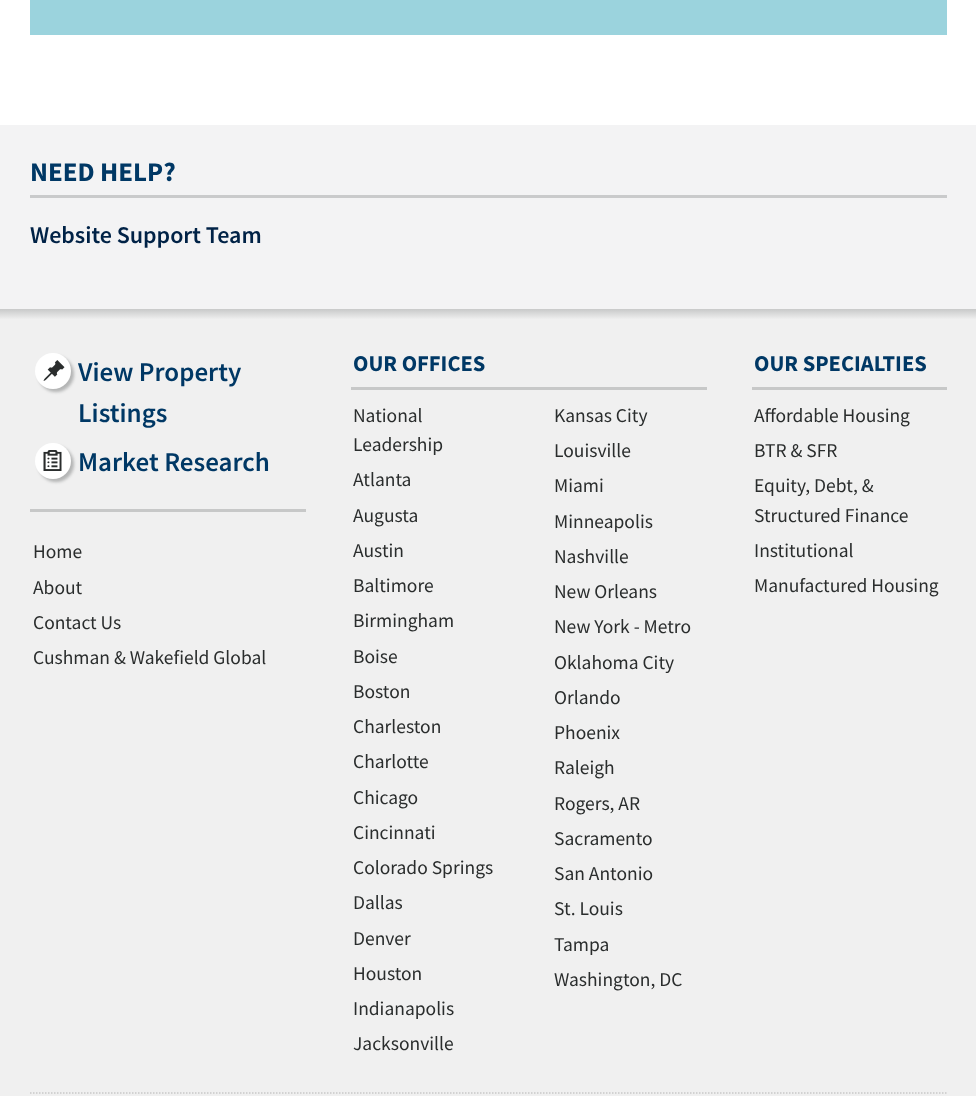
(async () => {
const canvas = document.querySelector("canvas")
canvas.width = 976
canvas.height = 1096
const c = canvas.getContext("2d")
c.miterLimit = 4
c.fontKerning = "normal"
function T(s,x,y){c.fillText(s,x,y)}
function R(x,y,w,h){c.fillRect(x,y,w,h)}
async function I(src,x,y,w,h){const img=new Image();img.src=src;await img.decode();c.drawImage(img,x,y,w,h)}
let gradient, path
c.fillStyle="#fff"
R(0,0,976,1096)
c.fillStyle="#9bd3dd"
R(30,0,917,35)
c.fillStyle="#f3f3f4"
R(0,125,976,184)
c.fillStyle="#c9cacb"
R(30,195,917,3)
c.font="bold 27px Source Sans Pro"
c.fillStyle="#003865"
T("NEED HELP?",30,181)
c.font="600 24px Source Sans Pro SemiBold"
c.fillStyle="#002246"
T("Website Support Team",30,243)
gradient = c.createLinearGradient(488,309,488,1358)
gradient.addColorStop(0,"#c8c9c9")
gradient.addColorStop(.01,"#f0f0f0")
c.fillStyle = gradient
R(0,309,976,787)
c.fillStyle="#c7c8c8"
R(30,509,276,3)
c.fillStyle="#2a2d2d4d"
c.filter="blur(1.5px)"
c.beginPath()
c.roundRect(38,356,36,36,18)
c.fill()
c.filter="none"
c.fillStyle="#fff"
c.beginPath()
c.arc(53,371,18,0,7)
c.fill()
await I("1.png",43,360,22,21)
c.font="600 27px Source Sans Pro SemiBold"
c.fillStyle="#003865"
T("View Property",78,381)
T("Listings",78,422)
c.fillStyle="#2a2d2d4d"
c.filter="blur(1.5px)"
c.beginPath()
c.roundRect(38,446,36,36,18)
c.fill()
c.filter="none"
c.fillStyle="#fff"
c.beginPath()
c.arc(53,461,18,0,7)
c.fill()
await I("2.png",43,450,19,21)
c.fillStyle="#003865"
T("Market Research",78,471)
c.font="19.5px Source Sans Pro"
c.fillStyle="#2a2d2d"
T("Home",33,558)
T("About",33,594)
T("Contact Us",33,629)
T("Cushman & Wakefield Global",33,664)
c.fillStyle="#c7c8c8"
R(351,387,356,3)
c.font="bold 22.5px Source Sans Pro"
c.fillStyle="#003865"
T("OUR OFFICES",353,371)
c.font="19.5px Source Sans Pro"
c.fillStyle="#2a2d2d"
T("National",353,422)
T("Leadership",353,451)
T("Atlanta",353,486)
T("Augusta",353,522)
T("Austin",353,557)
T("Baltimore",353,592)
T("Birmingham",353,627)
T("Boise",353,663)
T("Boston",353,698)
T("Charleston",353,733)
T("Charlotte",353,768)
T("Chicago",353,804)
T("Cincinnati",353,839)
T("Colorado Springs",353,874)
T("Dallas",353,909)
T("Denver",353,945)
T("Houston",353,980)
T("Indianapolis",353,1015)
T("Jacksonville",353,1050)
T("Kansas City",554,422)
T("Louisville",554,457)
T("Miami",554,492)
T("Minneapolis",554,528)
T("Nashville",554,563)
T("New Orleans",554,598)
T("New York - Metro",554,633)
T("Oklahoma City",554,669)
T("Orlando",554,704)
T("Phoenix",554,739)
T("Raleigh",554,774)
T("Rogers, AR",554,810)
T("Sacramento",554,845)
T("San Antonio",554,880)
T("St. Louis",554,915)
T("Tampa",554,951)
T("Washington, DC",554,986)
c.fillStyle="#c7c8c8"
R(752,387,195,3)
c.font="bold 22.5px Source Sans Pro"
c.fillStyle="#003865"
T("OUR SPECIALTIES",754,371)
c.font="19.5px Source Sans Pro"
c.fillStyle="#2a2d2d"
T("Affordable Housing",754,422)
T("BTR & SFR",754,457)
T("Equity, Debt, &",754,492)
T("Structured Finance",754,522)
T("Institutional",754,557)
T("Manufactured Housing",754,592)
path = new Path2D("M30 1093h916.5")
c.strokeStyle="#c7c8c8"
c.lineWidth=1.5
c.setLineDash([1.5,1.5])
c.stroke(path)
})()
